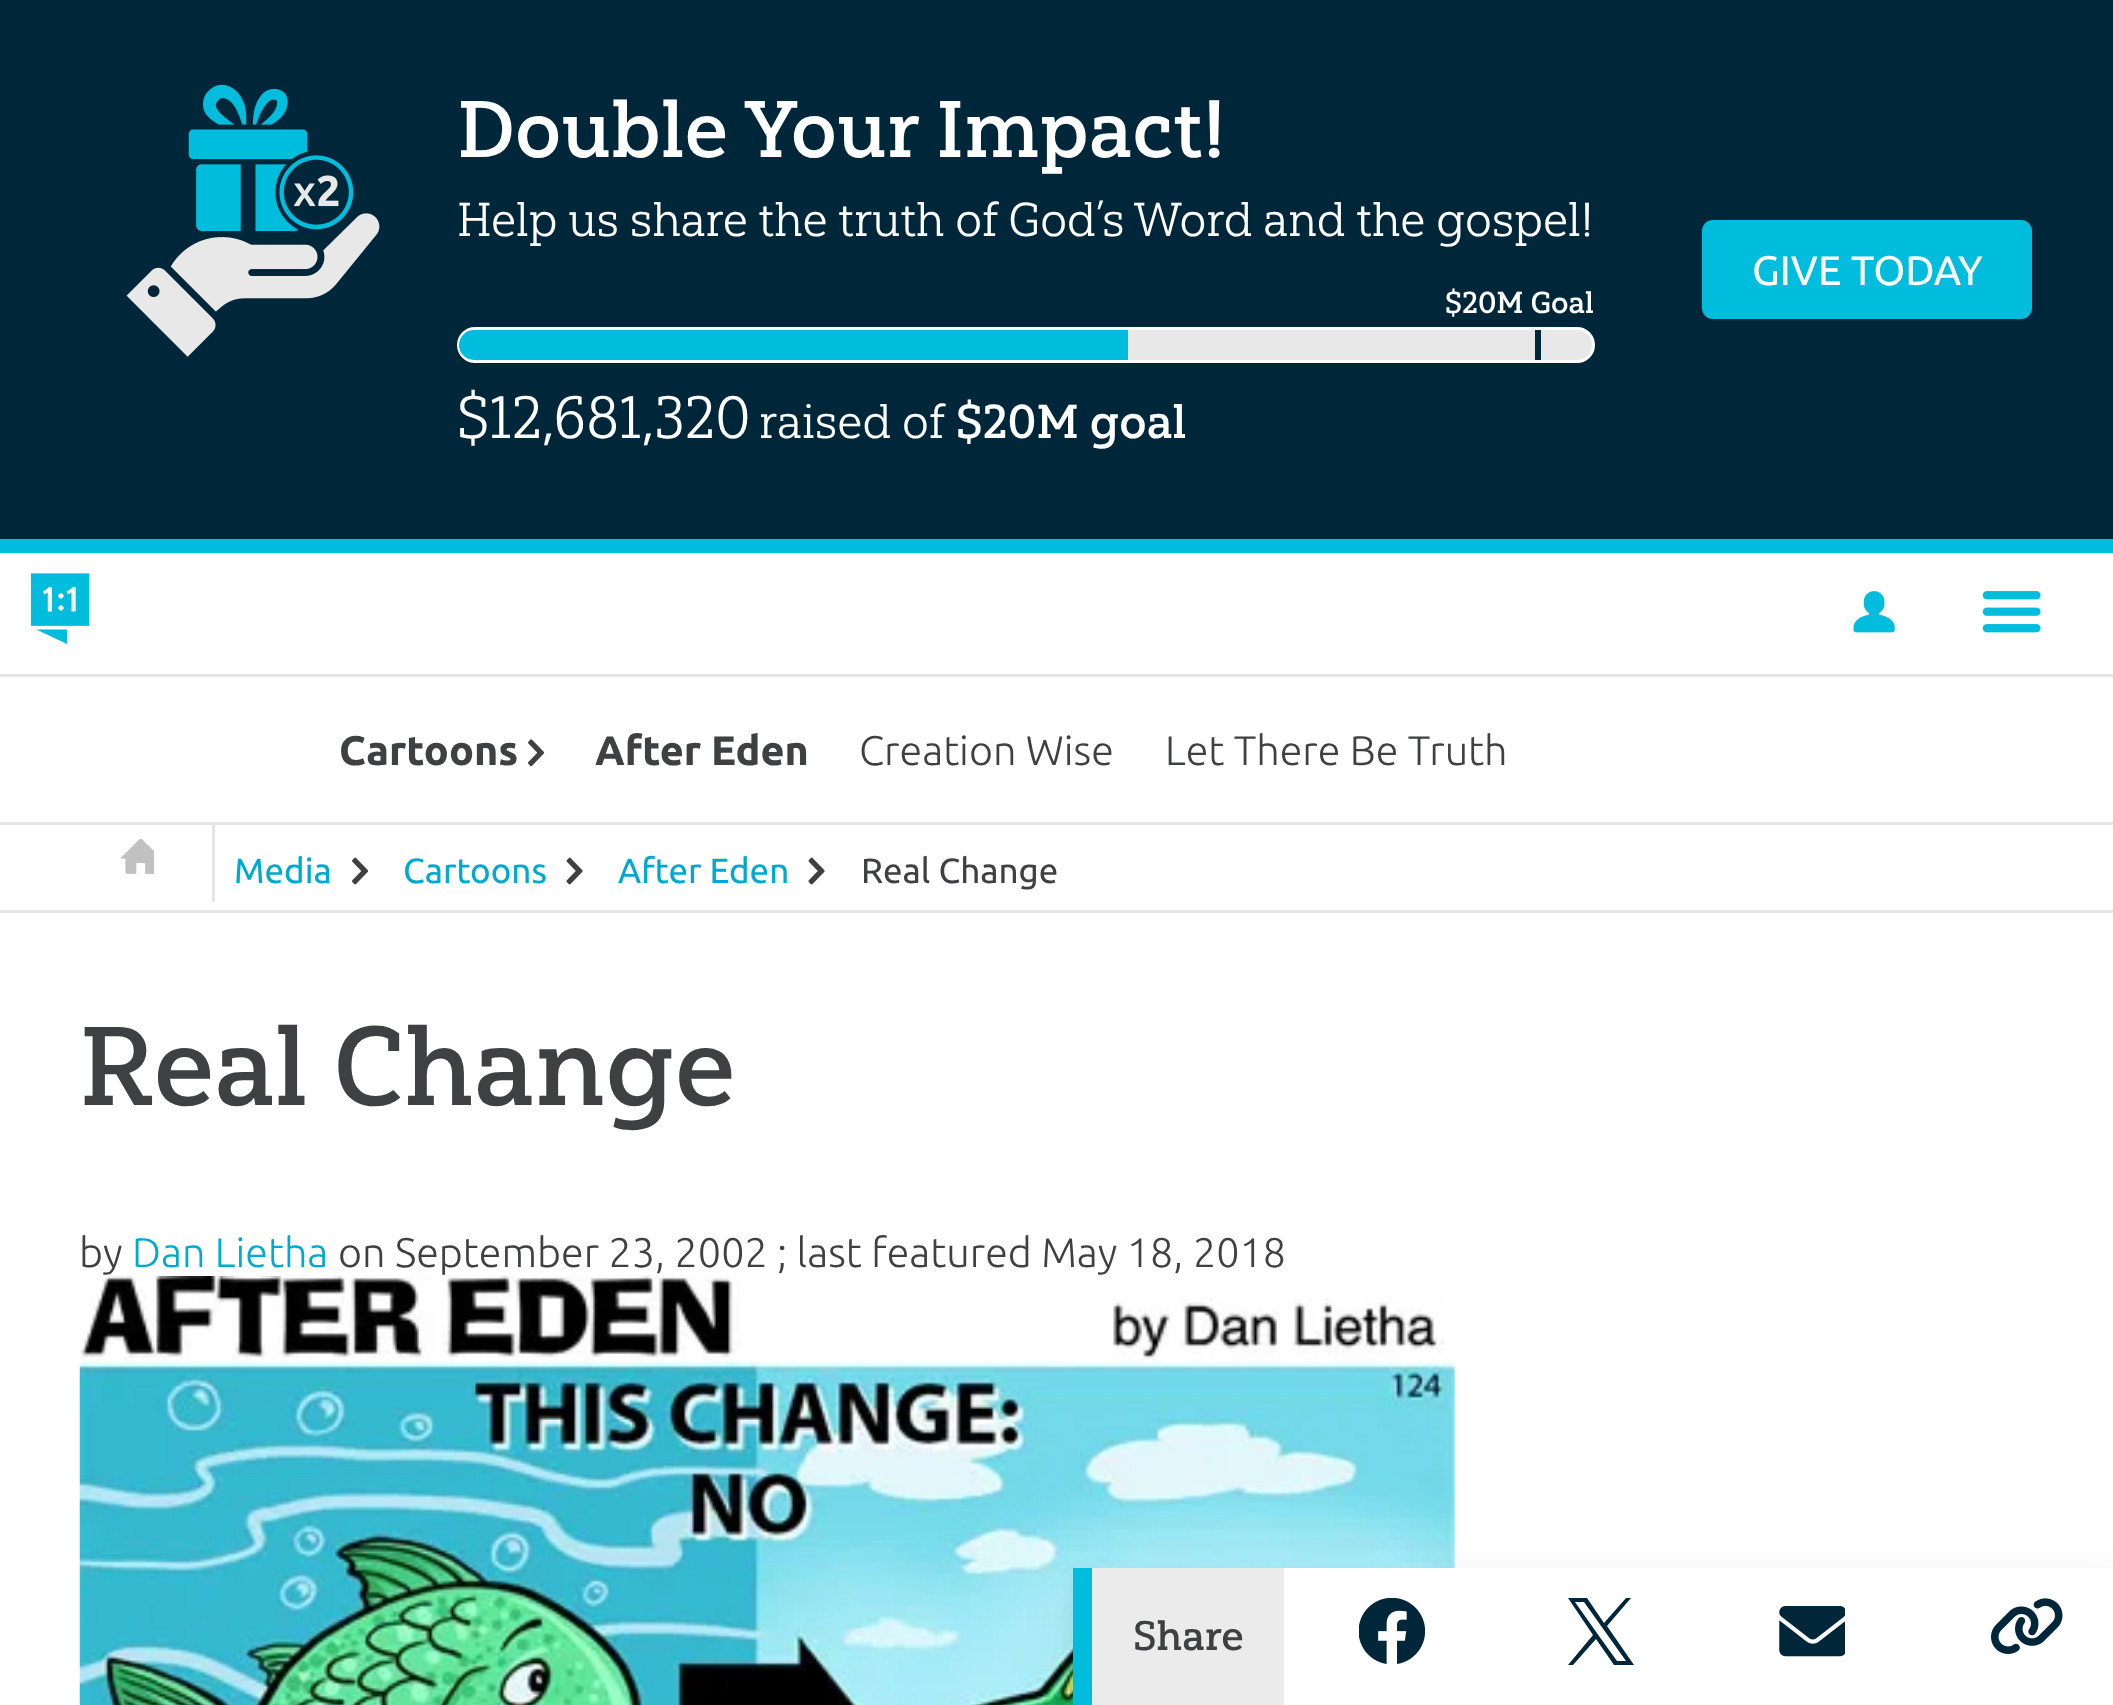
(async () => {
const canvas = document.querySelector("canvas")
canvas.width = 2113
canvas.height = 1705
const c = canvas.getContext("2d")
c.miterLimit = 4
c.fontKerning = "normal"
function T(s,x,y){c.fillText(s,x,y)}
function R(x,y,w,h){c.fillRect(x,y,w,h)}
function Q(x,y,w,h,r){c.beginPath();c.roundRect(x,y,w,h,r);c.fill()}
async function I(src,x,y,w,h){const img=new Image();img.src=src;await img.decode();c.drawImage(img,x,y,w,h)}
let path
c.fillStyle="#fff"
R(0,0,2113,1705)
c.fillStyle="#00263a"
R(0,0,2113,539)
await I("1.png",126,84,254,273)
c.font="600 80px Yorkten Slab"
c.fillStyle="#fff"
T("Double Your Impact!",457,157)
c.font="47.4px Yorkten Slab"
T("Help us share the truth of God’s Word and the gospel!",457,236)
c.font="600 30.25px Yorkten Slab"
T("$20M Goal",1445,313)
c.fillStyle="#e8e8e8"
c.beginPath()
c.roundRect(458.5,328.5,1135,33,16.5)
c.fill()
c.strokeStyle="#fff"
c.lineWidth=3
c.stroke()
c.fillStyle="#00bcdd"
c.beginPath()
c.roundRect(459,330,669,30,[15,0,0,15])
c.fill()
c.fillStyle="#00263a"
R(1535,330,6,30)
c.font="59.5px Yorkten Slab"
c.fillStyle="#fff"
T("$12,681,320",457,438)
c.font="47.4px Yorkten Slab"
T("raised of",759,438)
c.font="600 47.4px Yorkten Slab"
T("$20M goal",956,438)
c.fillStyle="#00bcdd"
Q(1702,220,330,99,11)
c.font="41.25px Ubuntu"
c.fillStyle="#fff"
T("GIVE TODAY",1752,285)
c.fillStyle="#00bcdd"
R(0,539,2113,14)
await I("2.png",30,573,60,71)
await I("3.png",1853,591,42,42)
await I("4.png",1982,591,59,42)
c.fillStyle="#e5e5e5"
R(0,674,2113,3)
R(212,822,3,80)
R(0,822,2113,3)
c.font="bold 41.25px Ubuntu"
c.fillStyle="#3f4041"
T("Cartoons",339,765)
await I("5.png",528,739,17,28)
T("After Eden",595,765)
c.font="300 41.25px Ubuntu"
T("Creation Wise",859,765)
T("Let There Be Truth",1165,765)
c.fillStyle="#e5e5e5"
R(0,910,2113,3)
await I("6.png",121,839,33,35)
c.font="35px Ubuntu"
c.fillStyle="#00a9cf"
T("Media",234,883)
await I("7.png",352,857,17,28)
T("Cartoons",403,883)
await I("8.png",566,857,17,28)
T("After Eden",618,883)
await I("8.png",808,857,17,28)
c.fillStyle="#3f4041"
T("Real Change",861,883)
c.font="600 111.5px Yorkten Slab"
T("Real Change",79,1105)
c.font="300 41.25px Ubuntu"
T("by",79,1267)
c.fillStyle="#00a9cf"
T("Dan Lietha",132,1267)
c.fillStyle="#3f4041"
T("on September 23, 2002 ; last featured May 18, 2018",338,1267)
await I("9.png",79,1276,1376,429)
c.fillStyle="#0000000d"
c.filter="blur(27.5px)"
c.beginPath()
c.rect(1073,1584,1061,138)
c.fill()
c.filter="none"
c.filter="blur(11px)"
c.beginPath()
c.rect(1073,1579,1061,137)
c.fill()
c.filter="none"
c.fillStyle="#fff"
R(1284,1568,829,137)
c.fillStyle="#00bcdd"
R(1073,1568,19,137)
c.fillStyle="#ebebeb"
R(1092,1568,192,137)
c.font="600 41.25px Yorkten Slab"
c.fillStyle="#3f4041"
T("Share",1133,1650)
await I("10.png",1359,1598,66,66)
c.fillStyle="#002639"
path = new Path2D("M1607 1626l24-28h-5l-22 25l-17-25h-19l25 37l-25 30h5l23-26l18 26h20zm-8 10l-24-34h9l42 59h-9z")
c.fill(path)
await I("11.png",1779,1606,66,51)
await I("12.png",1991,1598,72,56)
})()
